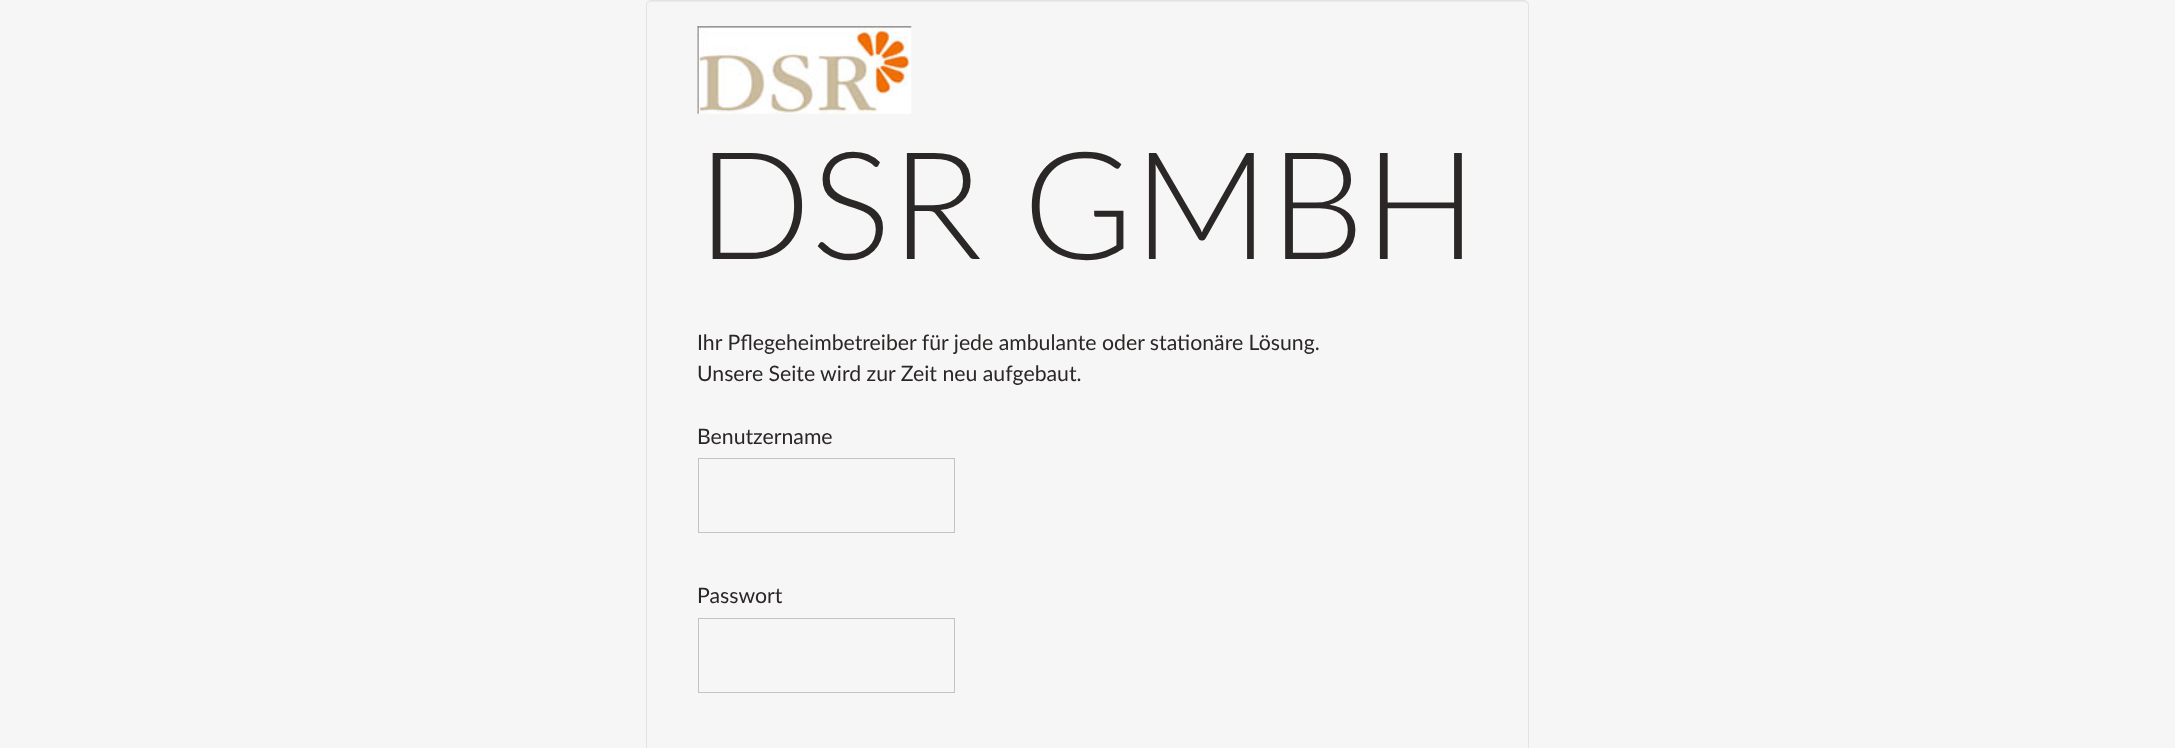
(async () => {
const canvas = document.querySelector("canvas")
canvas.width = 2175
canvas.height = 748
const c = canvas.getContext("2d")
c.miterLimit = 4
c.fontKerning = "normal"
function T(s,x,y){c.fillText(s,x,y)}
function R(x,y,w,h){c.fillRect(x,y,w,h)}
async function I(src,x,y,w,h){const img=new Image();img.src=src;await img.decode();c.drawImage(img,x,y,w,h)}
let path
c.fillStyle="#f6f6f6"
R(0,0,2175,748)
c.fillStyle="#eaeaea"
path = new Path2D("M651 2h873c2 0 4 2 4 4c0-3-1-5-4-5h-872c-3 0-4 2-4 5c0-2 1-4 3-4z")
c.fill(path)
c.beginPath()
c.roundRect(646.5,.5,882,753,4.5)
c.strokeStyle="#e3e3e3"
c.stroke()
await I("1.png",697,26,215,88)
c.font="300 150px Lato"
c.fillStyle="#2a2726"
T("DSR GMBH",697,259)
c.font="21.25px Lato"
T("Ihr Pflegeheimbetreiber für jede ambulante oder stationäre Lösung.",697,350)
T("Unsere Seite wird zur Zeit neu aufgebaut.",697,381)
T("Benutzername",697,444)
c.strokeStyle="#c3c3c3"
c.strokeRect(698.5,458.5,256,74)
T("Passwort",697,603)
c.strokeRect(698.5,618.5,256,74)
})()
